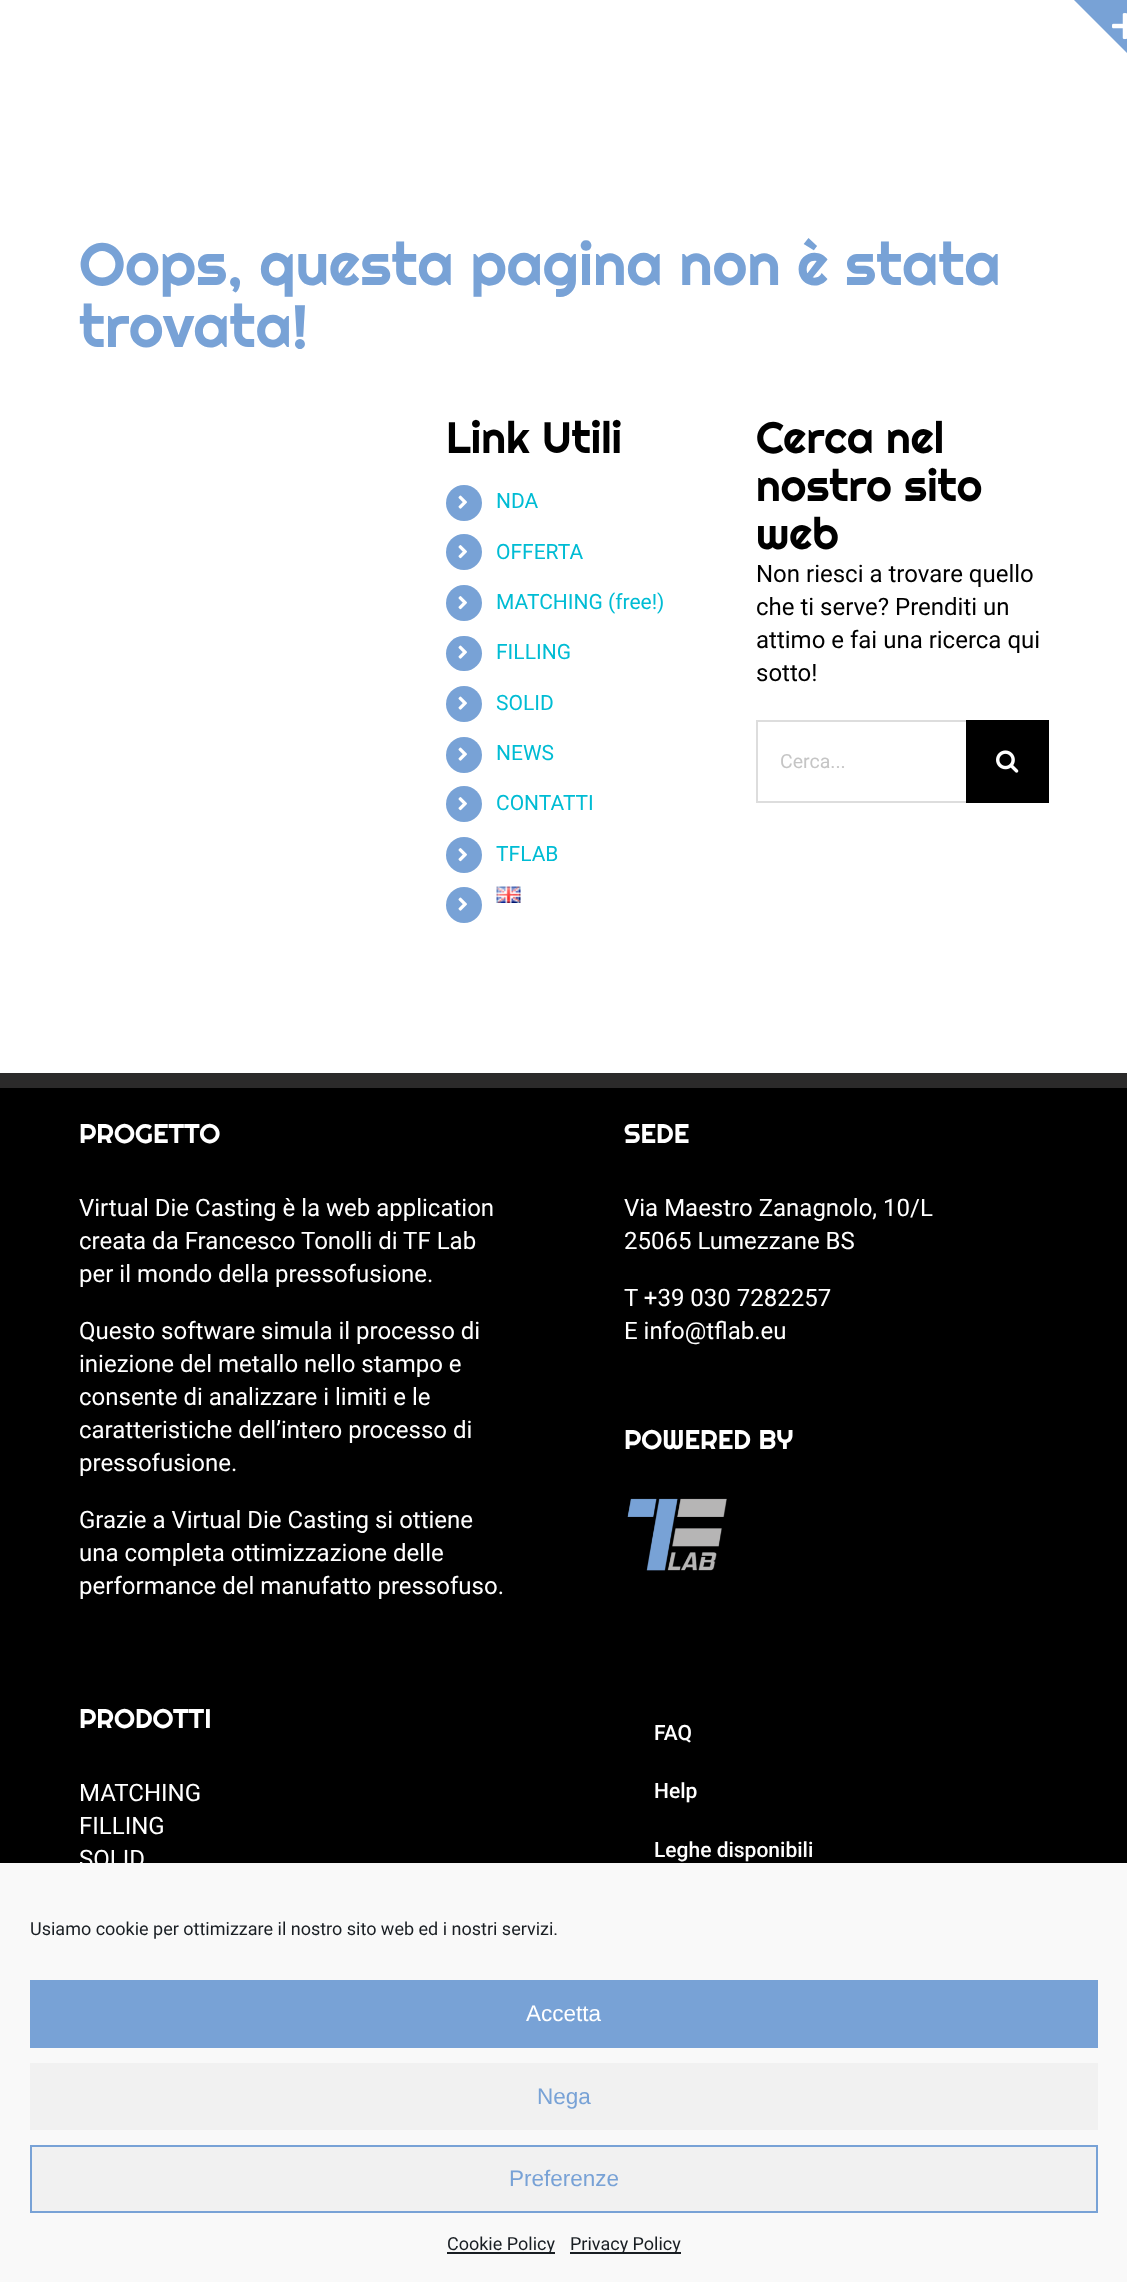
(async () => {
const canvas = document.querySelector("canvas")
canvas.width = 1127
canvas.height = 2282
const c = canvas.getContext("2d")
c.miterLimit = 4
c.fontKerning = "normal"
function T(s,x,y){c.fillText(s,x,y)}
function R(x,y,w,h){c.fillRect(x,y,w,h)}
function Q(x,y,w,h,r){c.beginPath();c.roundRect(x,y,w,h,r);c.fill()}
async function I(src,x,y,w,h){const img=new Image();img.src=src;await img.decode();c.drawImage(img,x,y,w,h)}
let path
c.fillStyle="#fff"
R(0,0,1127,2282)
c.fillStyle="#78a2d6"
path = new Path2D("M1074 0h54v54z")
c.fill(path)
await I("1.png",1112,13,15,27)
c.font="59.5px Righteous"
T("Oops, questa pagina non è stata",79,285)
T("trovata!",79,347)
c.font="44px Righteous"
c.fillStyle="#000"
T("Link Utili",446,453)
c.fillStyle="#78a2d6"
c.beginPath()
c.arc(464,503,18,0,7)
c.fill()
await I("2.png",458,495,9,14)
c.font="21px Roboto"
c.fillStyle="#00bcd4"
T("NDA",496,508)
c.fillStyle="#78a2d6"
c.beginPath()
c.arc(464,552,18,0,7)
c.fill()
await I("3.png",458,545,9,14)
c.fillStyle="#00bcd4"
T("OFFERTA",496,559)
c.fillStyle="#78a2d6"
c.beginPath()
c.arc(464,603,18,0,7)
c.fill()
await I("3.png",458,596,9,14)
c.fillStyle="#00bcd4"
T("MATCHING (free!)",496,609)
c.fillStyle="#78a2d6"
Q(446,636,36,35,17.5)
await I("2.png",458,645,9,14)
c.fillStyle="#00bcd4"
T("FILLING",496,659)
c.fillStyle="#78a2d6"
c.beginPath()
c.arc(464,704,18,0,7)
c.fill()
await I("2.png",458,696,9,14)
c.fillStyle="#00bcd4"
T("SOLID",496,710)
c.fillStyle="#78a2d6"
c.beginPath()
c.arc(464,755,18,0,7)
c.fill()
await I("2.png",458,747,9,14)
c.fillStyle="#00bcd4"
T("NEWS",496,760)
c.fillStyle="#78a2d6"
c.beginPath()
c.arc(464,804,18,0,7)
c.fill()
await I("3.png",458,797,9,14)
c.fillStyle="#00bcd4"
T("CONTATTI",496,810)
c.fillStyle="#78a2d6"
c.beginPath()
c.arc(464,855,18,0,7)
c.fill()
await I("3.png",458,848,9,14)
c.fillStyle="#00bcd4"
T("TFLAB",496,861)
c.fillStyle="#78a2d6"
c.beginPath()
c.arc(464,905,18,0,7)
c.fill()
await I("2.png",458,897,9,14)
await I("4.png",496,886,25,17)
c.font="44px Righteous"
c.fillStyle="#000"
T("Cerca nel",756,453)
T("nostro sito",756,501)
T("web",756,549)
c.font="24px Roboto"
T("Non riesci a trovare quello",756,582)
T("che ti serve? Prenditi un",756,615)
T("attimo e fai una ricerca qui",756,648)
T("sotto!",756,681)
c.fillStyle="#ddd"
R(756,720,210,2)
R(756,801,210,2)
R(756,720,2,83)
c.font="19.5px Roboto"
c.fillStyle="#c5c5c5"
T("Cerca...",780,768)
c.fillStyle="#000"
R(966,720,83,83)
await I("5.png",996,750,23,23)
R(0,1088,1127,775)
c.fillStyle="#2b2a2a"
R(0,1073,1127,15)
c.font="27px Righteous"
c.fillStyle="#fff"
T("PROGETTO",79,1143)
c.font="24px Roboto"
T("Virtual Die Casting è la web application",79,1216)
T("creata da Francesco Tonolli di TF Lab",79,1249)
T("per il mondo della pressofusione.",79,1282)
T("Questo software simula il processo di",79,1339)
T("iniezione del metallo nello stampo e",79,1372)
T("consente di analizzare i limiti e le",79,1405)
T("caratteristiche dell’intero processo di",79,1438)
T("pressofusione.",79,1471)
T("Grazie a Virtual Die Casting si ottiene",79,1528)
T("una completa ottimizzazione delle",79,1561)
T("performance del manufatto pressofuso.",79,1594)
c.font="27px Righteous"
T("SEDE",624,1143)
c.font="24px Roboto"
T("Via Maestro Zanagnolo, 10/L",624,1216)
T("25065 Lumezzane BS",624,1249)
T("T +39 030 7282257",624,1306)
T("E info@tflab.eu",624,1339)
c.font="27px Righteous"
T("POWERED BY",624,1449)
await I("6.png",627,1498,100,73)
T("PRODOTTI",79,1728)
c.font="24px Roboto"
T("MATCHING",79,1801)
T("FILLING",79,1834)
T("SOLID",79,1867)
c.font="500 21px Roboto"
T("FAQ",654,1740)
T("Help",654,1798)
T("Leghe disponibili",654,1857)
c.fillStyle="#00000030"
c.filter="blur(15px)"
c.beginPath()
c.rect(0,1878,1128,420)
c.fill()
c.filter="none"
c.fillStyle="#f9f9f9"
R(0,1864,1127,418)
c.font="18px Roboto"
c.fillStyle="#191e23"
T("Usiamo cookie per ottimizzare il nostro sito web ed i nostri servizi.",30,1935)
c.fillStyle="#78a2d6"
R(30,1980,1068,68)
c.font="22.5px Liberation Sans"
c.fillStyle="#fff"
T("Accetta",526,2021)
c.fillStyle="#f1f1f1"
R(30,2063,1068,67)
c.fillStyle="#78a2d6"
T("Nega",537,2104)
c.fillStyle="#f1f1f1"
c.beginPath()
c.rect(31,2146,1066,66)
c.fill()
c.strokeStyle="#78a2d6"
c.lineWidth=2
c.stroke()
c.fillStyle="#78a2d6"
T("Preferenze",509,2186)
c.fillStyle="#191e23"
R(447,2252,108,2)
c.font="18px Roboto"
T("Cookie Policy",447,2250)
R(570,2252,111,2)
T("Privacy Policy",570,2250)
})()
